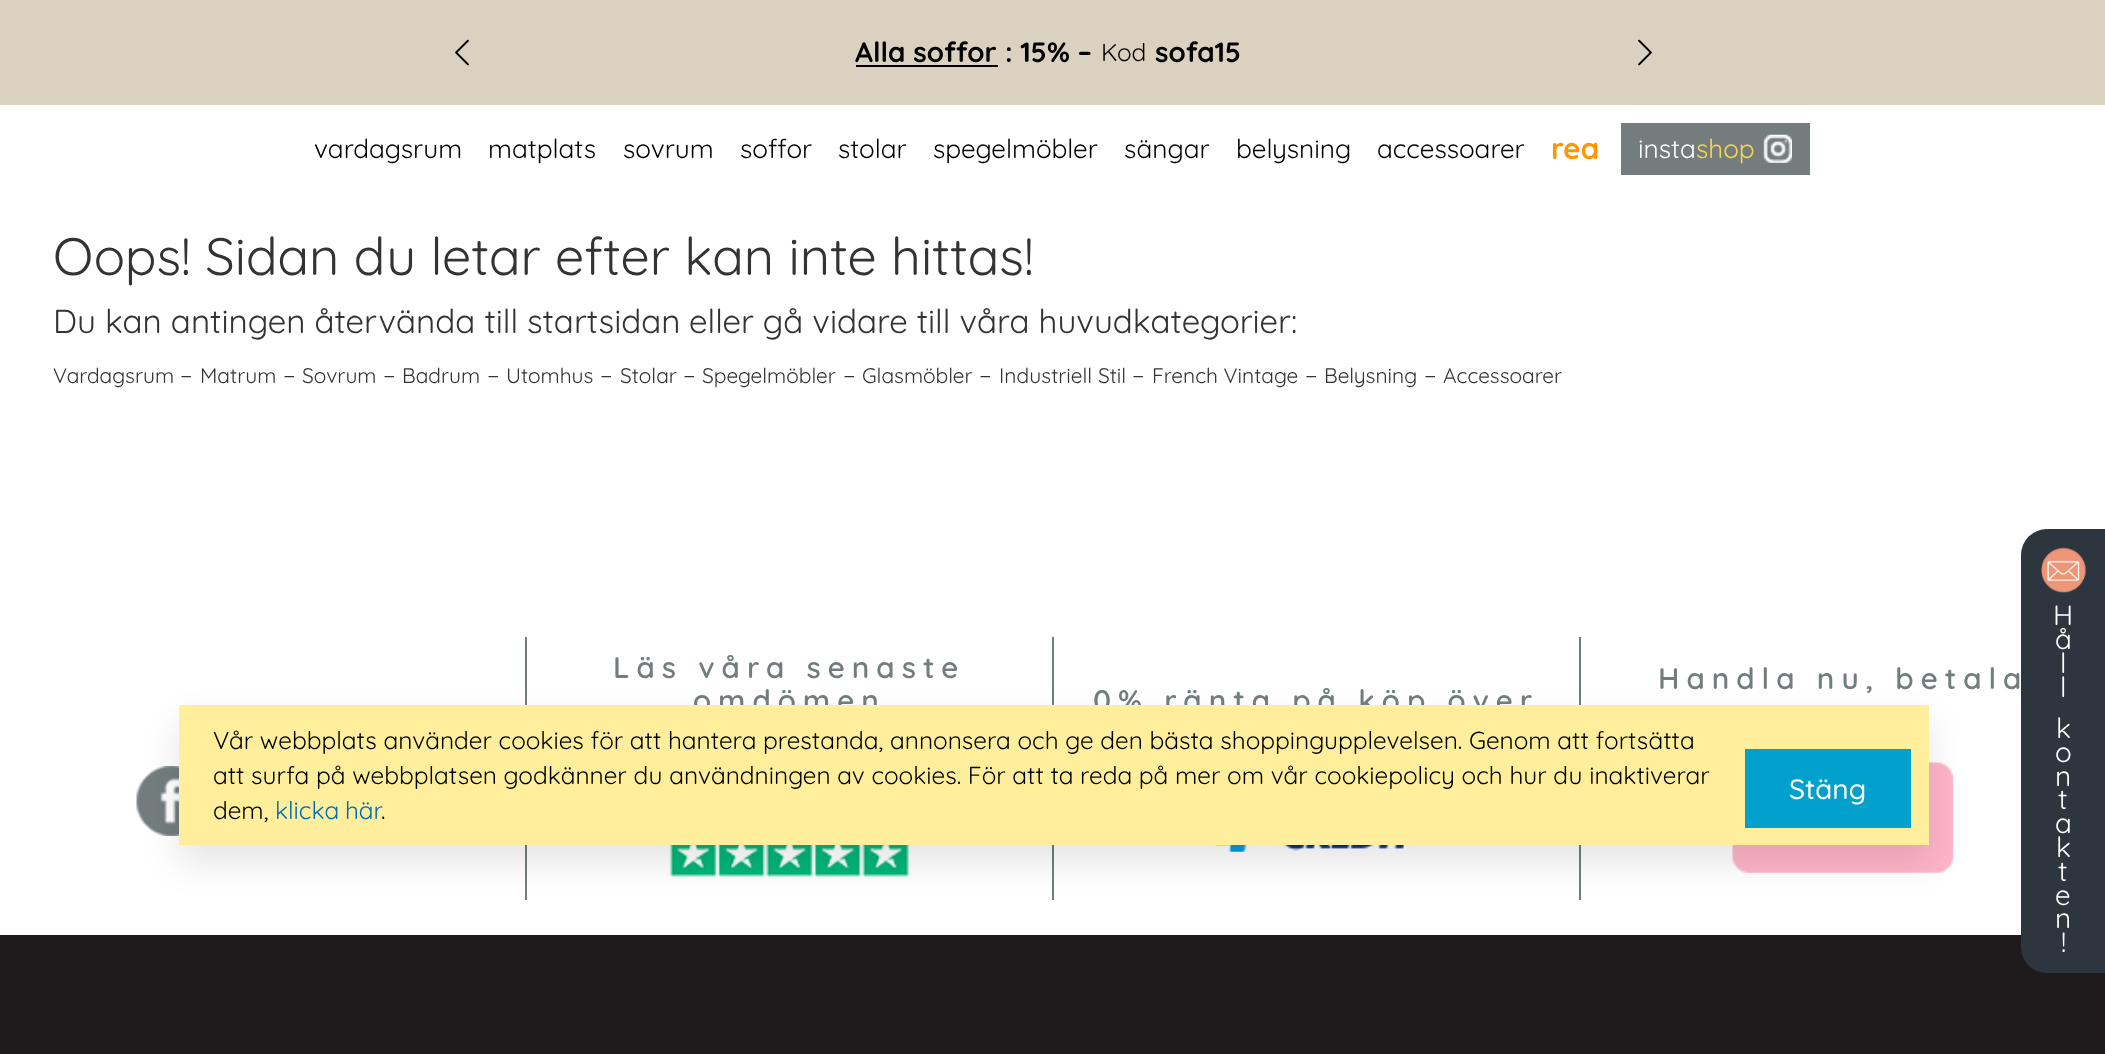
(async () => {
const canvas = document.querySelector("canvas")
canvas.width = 2105
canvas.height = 1054
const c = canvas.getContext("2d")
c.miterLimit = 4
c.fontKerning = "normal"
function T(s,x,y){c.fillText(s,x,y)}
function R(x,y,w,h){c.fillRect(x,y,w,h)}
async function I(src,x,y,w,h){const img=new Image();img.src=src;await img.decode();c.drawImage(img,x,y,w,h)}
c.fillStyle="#fff"
R(0,0,2105,1054)
c.fillStyle="#dad1c0"
R(0,0,2105,105)
await I("1.png",455,39,14,27)
await I("2.png",1638,39,14,27)
c.font="300 28px 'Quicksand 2'"
c.fillStyle="#000"
T("Alla soffor",855,62)
R(856,65,142,2)
T(": 15% –",1005,62)
c.font="300 24.5px Quicksand"
T("Kod",1101,61)
c.font="300 28px 'Quicksand 2'"
T("sofa15",1155,62)
c.font="300 26.25px Quicksand"
T("vardagsrum",314,158)
T("matplats",488,158)
T("sovrum",623,158)
T("soffor",740,158)
T("stolar",838,158)
T("spegelmöbler",933,158)
T("sängar",1124,158)
T("belysning",1236,158)
T("accessoarer",1377,158)
c.font="300 29.75px 'Quicksand 2'"
c.fillStyle="#ff9800"
T("rea",1551,159)
c.fillStyle="#737d7e"
R(1621,123,189,52)
c.font="300 26.25px Quicksand"
c.fillStyle="#fff"
T("insta",1638,158)
c.fillStyle="#ffd24e"
T("shop",1696,158)
await I("3.png",1763,134,29,29)
c.font="300 52.5px Quicksand"
c.fillStyle="#333"
T("Oops! Sidan du letar efter kan inte hittas!",53,275)
c.font="300 33.25px Quicksand"
T("Du kan antingen återvända till",53,333)
T("startsidan",527,333)
T("eller gå vidare till våra huvudkategorier:",689,333)
c.font="300 21px Quicksand"
T("Vardagsrum",53,383)
c.font="300 24.5px Quicksand"
T("–",180,383)
c.font="300 21px Quicksand"
T("Matrum",200,383)
c.font="300 24.5px Quicksand"
T("–",283,383)
c.font="300 21px Quicksand"
T("Sovrum",302,383)
c.font="300 24.5px Quicksand"
T("–",383,383)
c.font="300 21px Quicksand"
T("Badrum",402,383)
c.font="300 24.5px Quicksand"
T("–",487,383)
c.font="300 21px Quicksand"
T("Utomhus",506,383)
c.font="300 24.5px Quicksand"
T("–",600,383)
c.font="300 21px Quicksand"
T("Stolar",620,383)
c.font="300 24.5px Quicksand"
T("–",683,383)
c.font="300 21px Quicksand"
T("Spegelmöbler",702,383)
c.font="300 24.5px Quicksand"
T("–",843,383)
c.font="300 21px Quicksand"
T("Glasmöbler",862,383)
c.font="300 24.5px Quicksand"
T("–",979,383)
c.font="300 21px Quicksand"
T("Industriell Stil",999,383)
c.font="300 24.5px Quicksand"
T("–",1132,383)
c.font="300 21px Quicksand"
T("French Vintage",1152,383)
c.font="300 24.5px Quicksand"
T("–",1305,383)
c.font="300 21px Quicksand"
T("Belysning",1324,383)
c.font="300 24.5px Quicksand"
T("–",1424,383)
c.font="300 21px Quicksand"
T("Accessoarer",1443,383)
c.fillStyle="#737d7e"
R(525,637,2,263)
c.letterSpacing="7px"
c.font="600 29.75px Quicksand"
T("Läs våra senaste",613,678)
T("omdömen",693,711)
await I("4.png",669,845,240,32)
R(1579,637,2,263)
T("Handla nu, betala",1658,689)
await I("5.png",1732,762,221,111)
R(1052,637,2,263)
T("0% ränta på köp över",1093,711)
await I("6.png",1216,845,189,7)
await I("7.png",136,766,43,70)
c.fillStyle="#1f1b1d"
R(0,935,2105,119)
c.fillStyle="#2d363f"
c.beginPath()
c.roundRect(2021,529,84,444,[26,0,0,26])
c.fill()
await I("8.png",2041,547,45,46)
c.letterSpacing="0px"
c.font="300 28px Quicksand"
c.fillStyle="#fff"
T("H",2053,625)
T("å",2055,649)
T("l",2060,673)
T("l",2060,697)
T("k",2056,738)
T("o",2055,762)
T("n",2055,786)
T("t",2058,809)
T("a",2055,833)
T("k",2056,857)
T("t",2058,881)
T("e",2055,905)
T("n",2055,928)
T("!",2061,952)
c.fillStyle="#0000001a"
c.filter="blur(17.5px)"
c.beginPath()
c.rect(179,723,1750,140)
c.fill()
c.filter="none"
c.fillStyle="#ffee9c"
R(179,705,1750,140)
c.font="300 24.5px Quicksand"
c.fillStyle="#000"
T("Vår webbplats använder cookies för att hantera prestanda, annonsera och ge den bästa shoppingupplevelsen. Genom att fortsätta",213,749)
T("att surfa på webbplatsen godkänner du användningen av cookies. För att ta reda på mer om vår cookiepolicy och hur du inaktiverar",213,784)
T("dem,",213,819)
c.wordSpacing="-1px"
c.fillStyle="#006bb4"
T("klicka här",275,819)
c.wordSpacing="0px"
c.fillStyle="#000"
T(".",381,819)
c.fillStyle="#02a0cd"
R(1745,749,166,79)
c.font="300 28px 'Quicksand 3'"
c.fillStyle="#fff"
T("Stäng",1789,799)
})()
